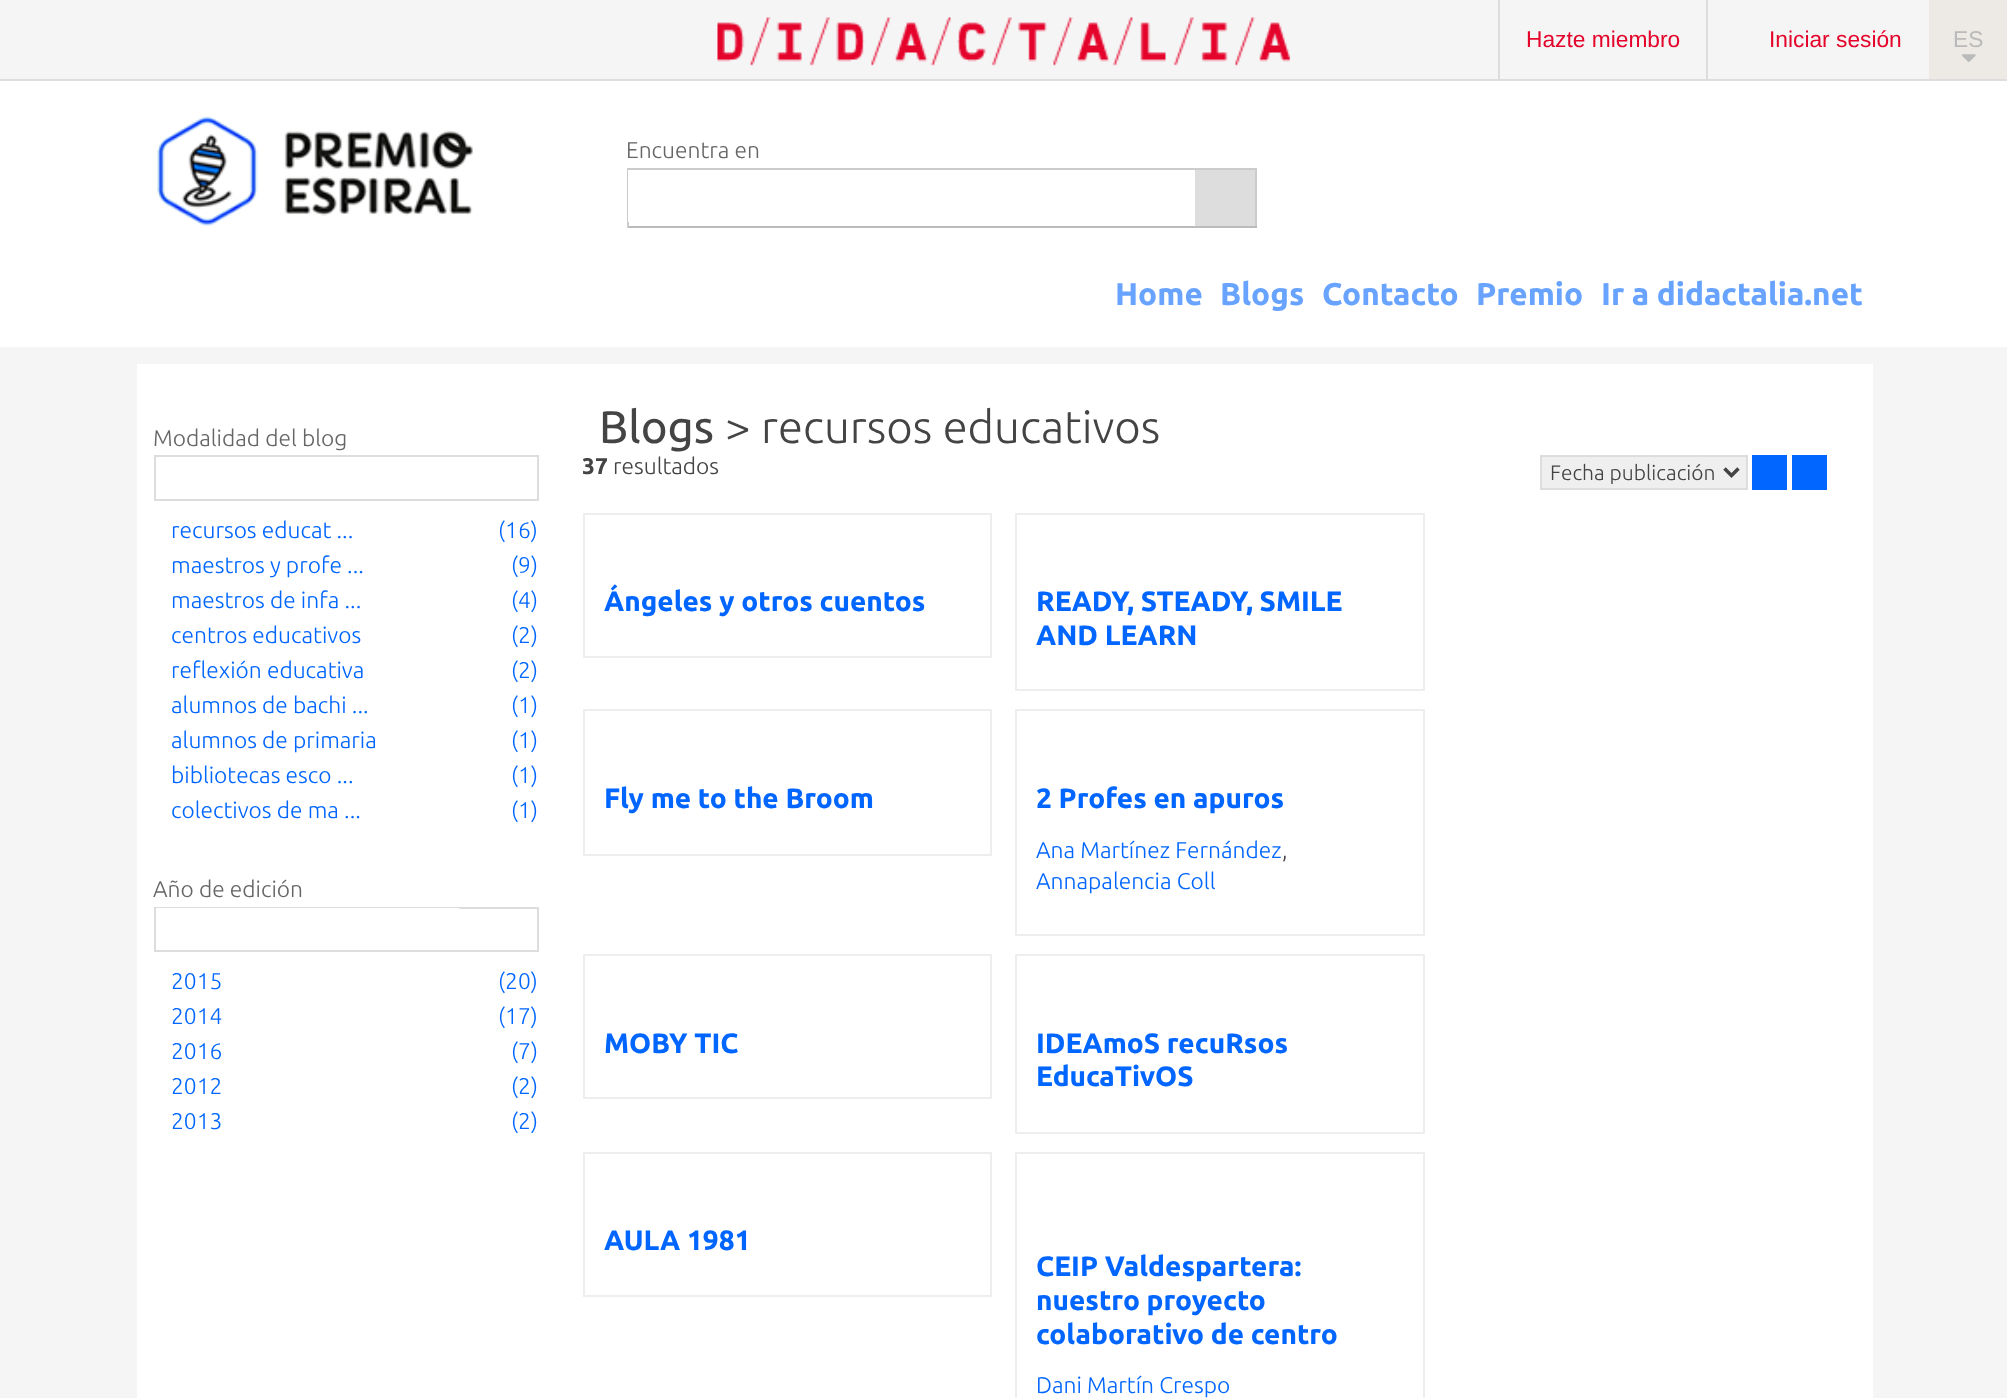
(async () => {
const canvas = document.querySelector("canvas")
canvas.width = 2007
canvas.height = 1398
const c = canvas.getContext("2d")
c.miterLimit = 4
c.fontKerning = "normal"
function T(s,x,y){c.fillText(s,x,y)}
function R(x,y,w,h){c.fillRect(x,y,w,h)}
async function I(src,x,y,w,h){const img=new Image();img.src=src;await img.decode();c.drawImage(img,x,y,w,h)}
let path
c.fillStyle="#f5f5f5"
R(0,0,2007,1398)
c.fillStyle="#ddd"
R(0,79,2007,2)
await I("1.png",717,17,573,49)
R(1498,0,2,79)
c.font="22.75px Liberation Sans"
c.fillStyle="#e4042b"
T("Hazte miembro",1526,47)
c.fillStyle="#ddd"
R(1706,0,2,79)
c.fillStyle="#e4042b"
T("Iniciar sesión",1769,47)
c.fillStyle="#edeae5"
R(1929,0,78,79)
c.fillStyle="#bababa"
T("ES",1953,47)
await I("2.png",1961,54,15,8)
c.fillStyle="#fff"
R(0,81,2007,266)
await I("3.png",157,116,316,110)
c.font="300 22.75px Ubuntu"
c.fillStyle="#666"
T("Encuentra en",626,158)
c.fillStyle="#ccc"
R(627,168,630,2)
R(1255,168,2,60)
c.fillStyle="#bbb"
R(627,226,630,2)
c.fillStyle="#ccc"
R(627,168,2,60)
c.fillStyle="#fff"
R(628,170,1,52)
c.fillStyle="#ddd"
R(1195,170,60,56)
c.font="bold 31.5px Ubuntu"
c.fillStyle="#67a3ff"
T("Home",1115,305)
T("Blogs",1220,305)
T("Contacto",1322,305)
T("Premio",1476,305)
T("Ir a didactalia.net",1601,305)
c.fillStyle="#fff"
R(137,364,1736,1034)
c.font="300 22.75px Ubuntu"
c.fillStyle="#666"
T("Modalidad del blog",153,446)
c.strokeStyle="#ddd"
c.lineWidth=2
c.strokeRect(155,456,383,44)
c.fillStyle="#0166ff"
T("recursos educat ...",171,538)
T("(16)",498,538)
T("maestros y profe ...",171,573)
T("(9)",511,573)
T("maestros de infa ...",171,608)
T("(4)",511,608)
T("centros educativos",171,643)
T("(2)",511,643)
T("reflexión educativa",171,678)
T("(2)",511,678)
T("alumnos de bachi ...",171,713)
T("(1)",511,713)
T("alumnos de primaria",171,748)
T("(1)",511,748)
T("bibliotecas esco ...",171,783)
T("(1)",511,783)
T("colectivos de ma ...",171,818)
T("(1)",511,818)
c.fillStyle="#666"
T("Año de edición",153,897)
c.strokeRect(155,908,383,43)
c.fillStyle="#fff"
R(156,908,303,1)
c.fillStyle="#0166ff"
T("2015",171,989)
T("(20)",498,989)
T("2014",171,1024)
T("(17)",498,1024)
T("2016",171,1059)
T("(7)",511,1059)
T("2012",171,1094)
T("(2)",511,1094)
T("2013",171,1129)
T("(2)",511,1129)
c.font="45.5px Ubuntu"
c.fillStyle="#444"
T("Blogs",599,443)
c.font="300 45.5px Ubuntu"
T("> recursos educativos",725,443)
c.save()
c.beginPath()
c.rect(583,399,1263,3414)
c.clip()
c.font="bold 22.75px Ubuntu"
T("37",582,474)
c.restore()
c.font="300 22.75px Ubuntu"
T("resultados",613,474)
c.fillStyle="#efefef"
c.beginPath()
c.rect(1541,456,206,33)
c.fill()
c.stroke()
path = new Path2D("M1724.5 468.5l7 7l7-7")
c.strokeStyle="#444"
c.lineWidth=3.5
c.stroke(path)
c.font="300 21px Ubuntu"
c.fillStyle="#444"
T("Fecha publicación",1550,480)
c.fillStyle="#0166ff"
R(1752,455,35,35)
R(1792,455,35,35)
c.strokeStyle="#eee"
c.lineWidth=2
c.strokeRect(584,514,407,143)
c.font="bold 28px Ubuntu"
T("Ángeles y otros cuentos",604,611)
c.strokeRect(1016,514,408,176)
T("READY, STEADY, SMILE",1036,611)
T("AND LEARN",1036,645)
c.strokeRect(584,710,407,145)
T("Fly me to the Broom",604,808)
c.strokeRect(1016,710,408,225)
T("2 Profes en apuros",1036,808)
c.font="300 22.75px Ubuntu"
T("Ana Martínez Fernández",1036,858)
c.fillStyle="#444"
T(",",1282,858)
c.fillStyle="#0166ff"
T("Annapalencia Coll",1036,889)
c.strokeRect(584,955,407,143)
c.font="bold 28px Ubuntu"
T("MOBY TIC",604,1053)
c.strokeRect(1016,955,408,178)
T("IDEAmoS recuRsos",1036,1053)
T("EducaTivOS",1036,1086)
c.strokeRect(584,1153,407,143)
T("AULA 1981",604,1250)
c.strokeRect(1016,1153,408,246)
T("CEIP Valdespartera:",1036,1276)
T("nuestro proyecto",1036,1310)
T("colaborativo de centro",1036,1344)
c.font="300 22.75px Ubuntu"
T("Dani Martín Crespo",1036,1393)
})()
